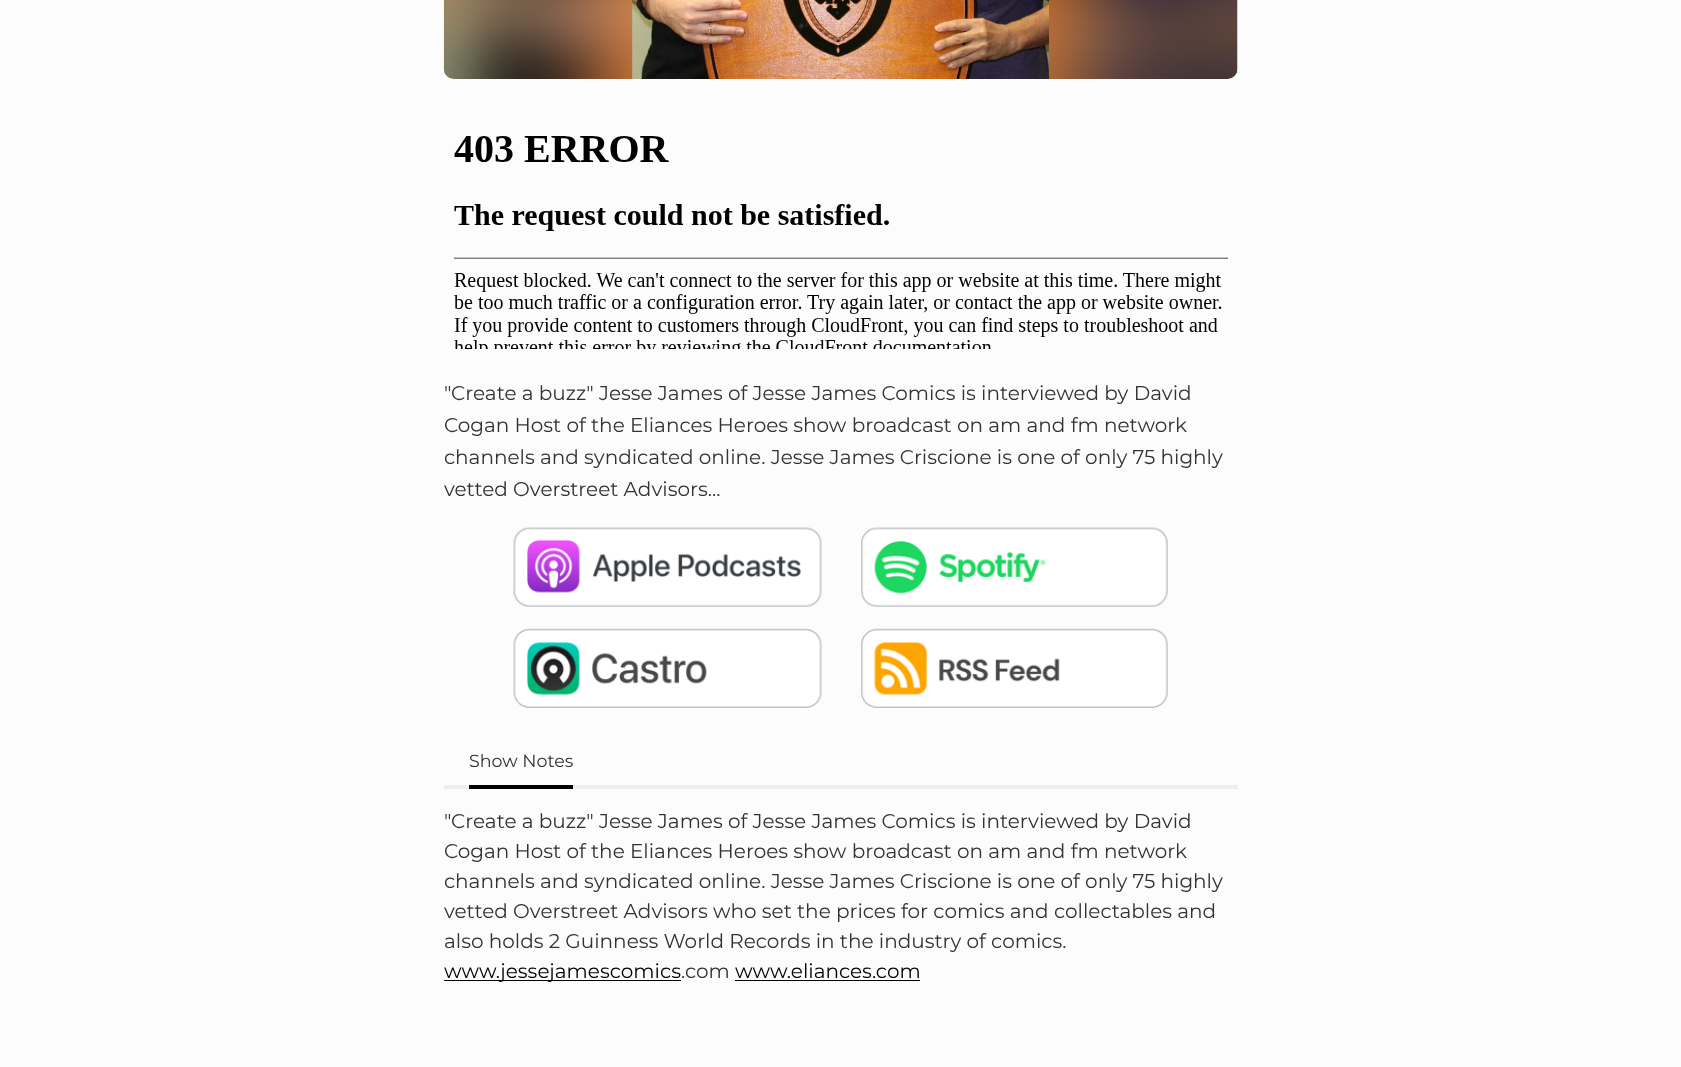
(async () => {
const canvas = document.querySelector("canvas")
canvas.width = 1681
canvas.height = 1067
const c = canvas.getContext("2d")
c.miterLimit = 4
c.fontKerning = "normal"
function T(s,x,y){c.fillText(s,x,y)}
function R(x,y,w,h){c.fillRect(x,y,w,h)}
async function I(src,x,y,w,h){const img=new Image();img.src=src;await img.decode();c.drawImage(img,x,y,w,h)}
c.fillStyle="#fcfcfc"
R(0,0,1681,1067)
await I("1.png",443,0,795,79)
await I("2.png",454,136,774,213)
c.font="20px Montserrat"
c.fillStyle="#323232"
T("\"Create a buzz\" Jesse James of Jesse James Comics is interviewed by David",444,400)
T("Cogan Host of the Eliances Heroes show broadcast on am and fm network",444,432)
T("channels and syndicated online. Jesse James Criscione is one of only 75 highly",444,464)
T("vetted Overstreet Advisors...",444,496)
await I("3.png",513,527,309,80)
await I("4.png",861,527,307,80)
await I("5.png",513,628,309,80)
await I("6.png",861,628,307,80)
c.fillStyle="#efefef"
R(444,785,794,4)
c.fillStyle="#000"
R(469,785,104,4)
c.font="17.5px Montserrat"
c.fillStyle="#323232"
T("Show Notes",469,767)
c.font="20px Montserrat"
T("\"Create a buzz\" Jesse James of Jesse James Comics is interviewed by David",444,828)
T("Cogan Host of the Eliances Heroes show broadcast on am and fm network",444,858)
T("channels and syndicated online. Jesse James Criscione is one of only 75 highly",444,888)
T("vetted Overstreet Advisors who set the prices for comics and collectables and",444,918)
T("also holds 2 Guinness World Records in the industry of comics.",444,948)
c.fillStyle="#000"
R(444,980,237,1)
T("www.jessejamescomics",444,978)
c.fillStyle="#323232"
T(".com",681,978)
c.fillStyle="#000"
T("www.eliances.com",735,978)
R(735,980,185,1)
})()
